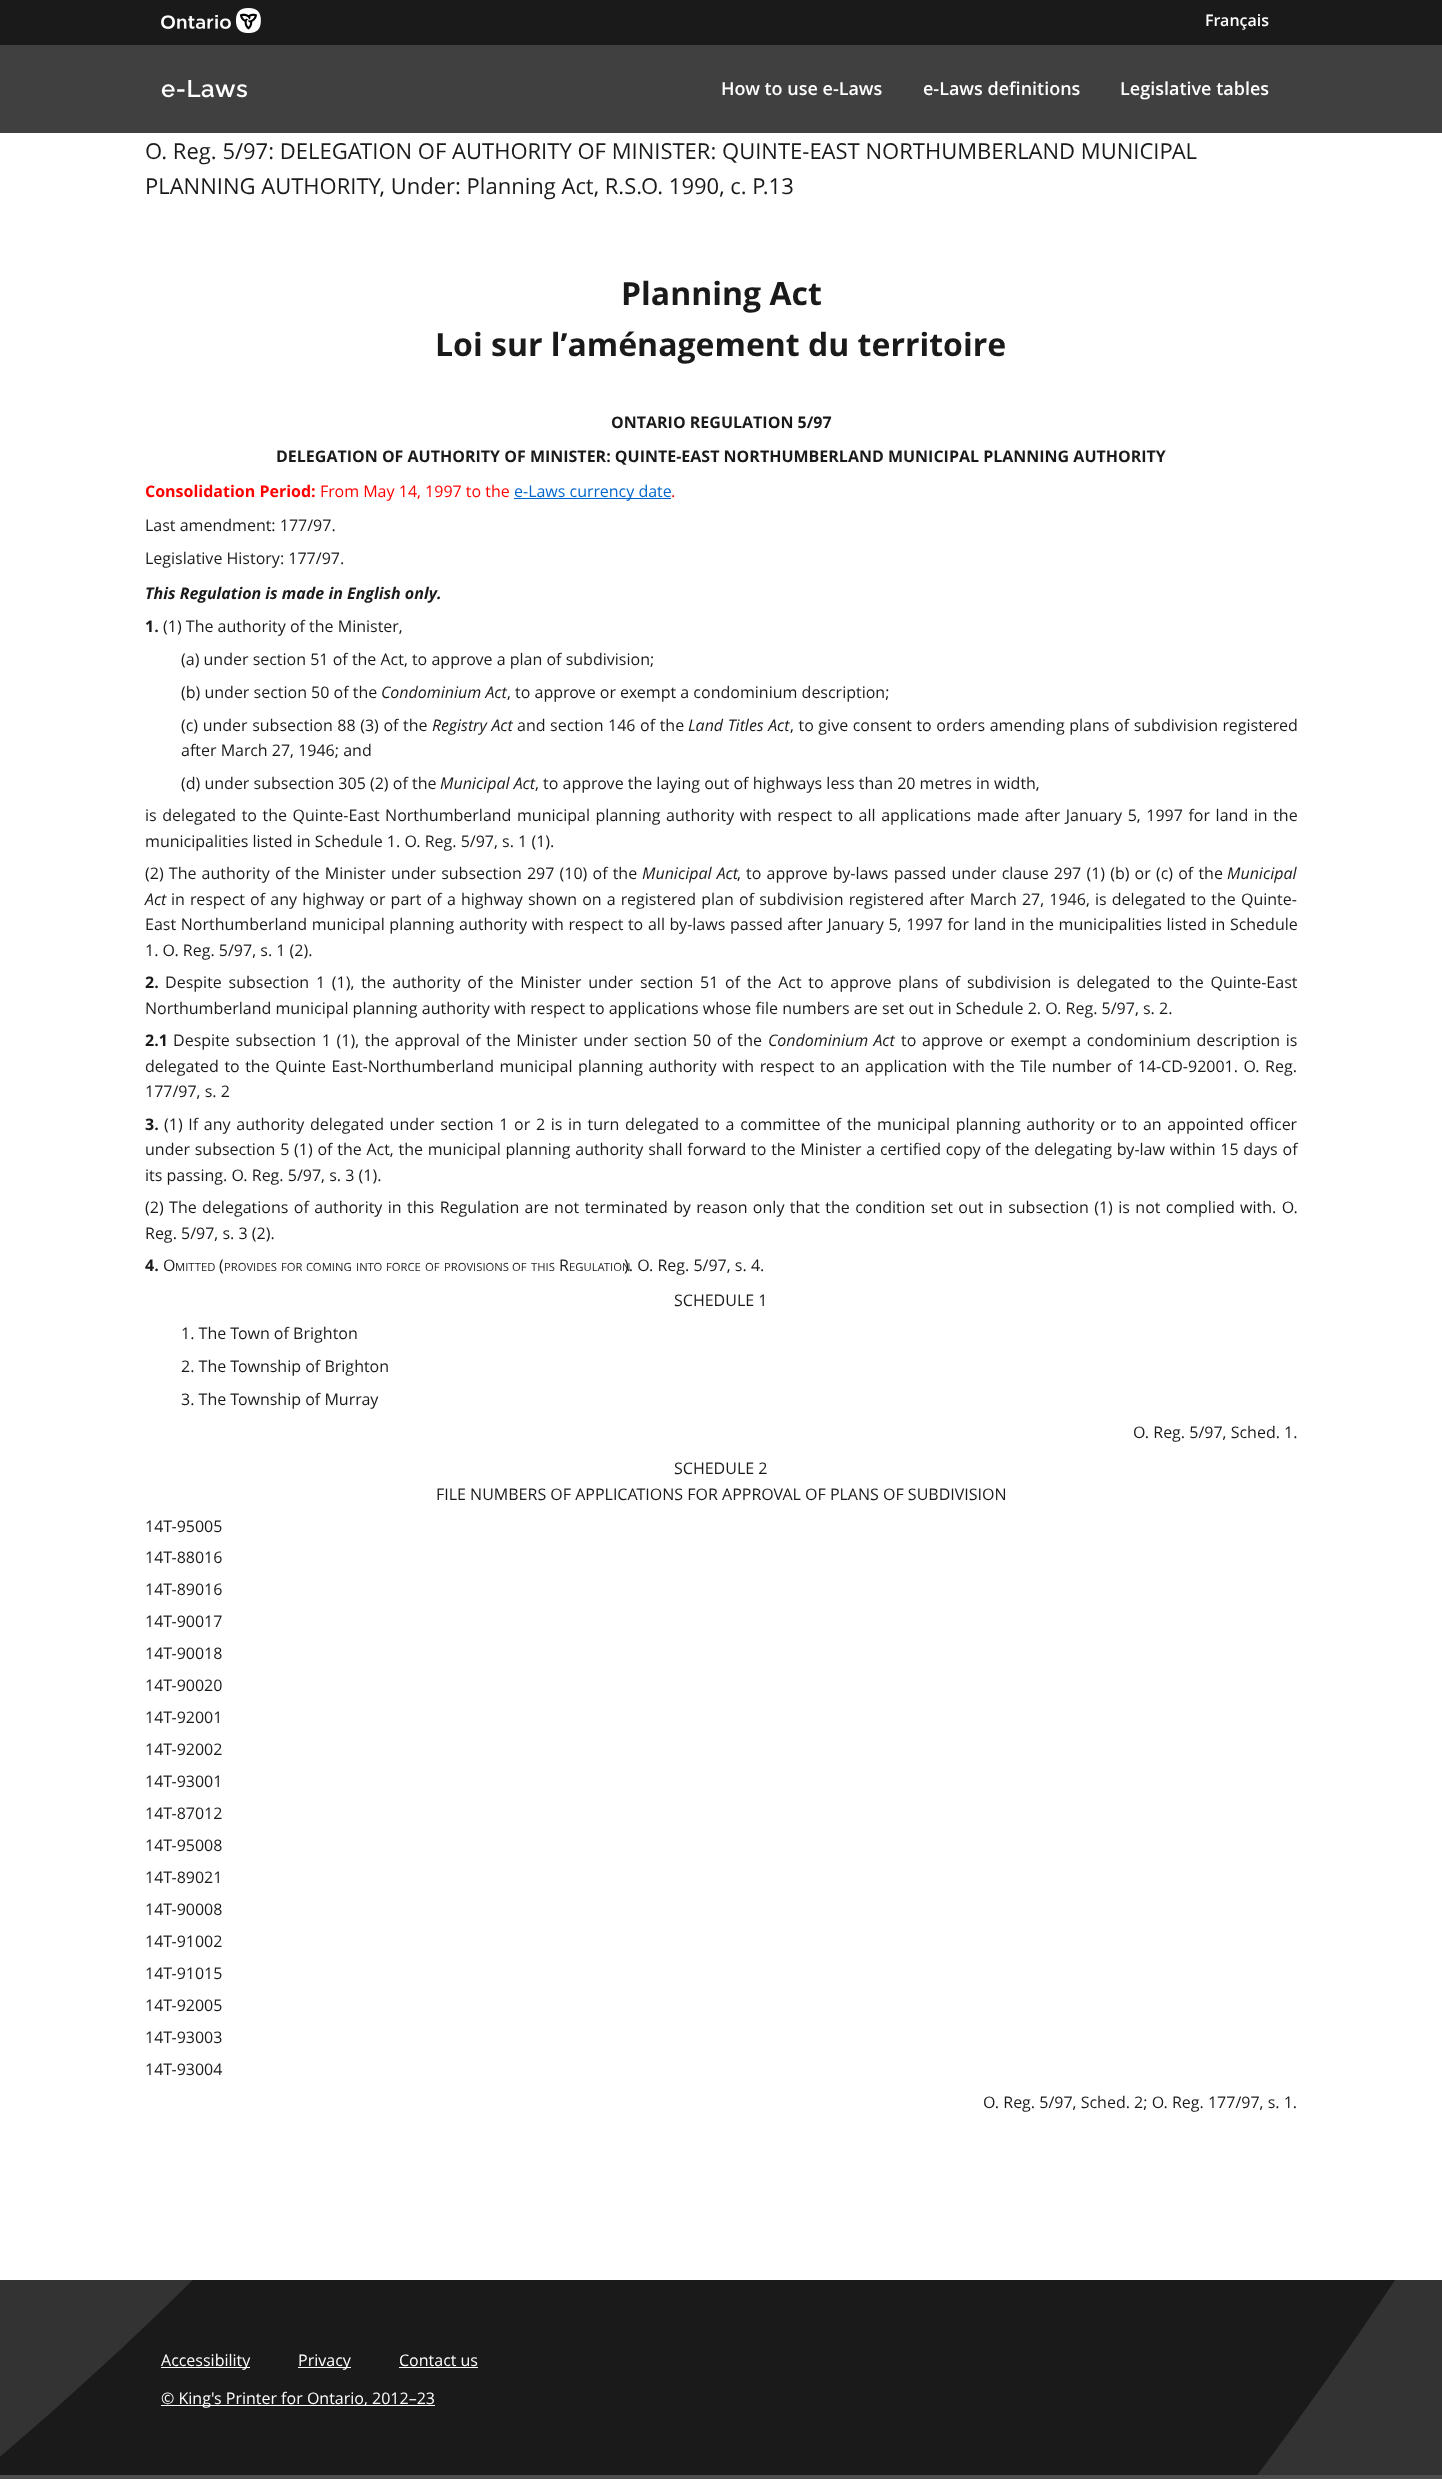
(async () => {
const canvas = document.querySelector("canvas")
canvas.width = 1442
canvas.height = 2479
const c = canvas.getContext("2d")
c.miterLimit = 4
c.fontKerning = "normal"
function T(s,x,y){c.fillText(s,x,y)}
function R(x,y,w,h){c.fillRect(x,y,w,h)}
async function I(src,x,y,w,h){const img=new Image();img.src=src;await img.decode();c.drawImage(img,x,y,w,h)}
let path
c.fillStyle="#fff"
R(0,0,1442,2479)
c.fillStyle="#1a1a1a"
R(0,0,1442,45)
await I("1.png",161,8,100,25)
c.font="600 16px Open Sans"
c.fillStyle="#fff"
T("Français",1205,26)
c.fillStyle="#404040"
R(0,45,1442,88)
c.letterSpacing="0.5px"
c.font="600 24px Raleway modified"
c.fillStyle="#fff"
T("e-Laws",161,97)
c.letterSpacing="0px"
c.font="600 18px Open Sans"
T("How to use e-Laws",721,95)
T("e-Laws definitions",923,95)
T("Legislative tables",1120,95)
c.font="22px Open Sans"
c.fillStyle="#1a1a1a"
T("O. Reg. 5/97: DELEGATION OF AUTHORITY OF MINISTER: QUINTE-EAST NORTHUMBERLAND MUNICIPAL",145,159)
T("PLANNING AUTHORITY, Under: Planning Act, R.S.O. 1990, c. P.13",145,194)
c.font="bold 32px Open Sans"
T("Planning Act",621,305)
T("Loi sur l’aménagement du territoire",435,356)
c.font="bold 16px Open Sans"
T("ONTARIO REGULATION 5/97",611,428)
T("DELEGATION OF AUTHORITY OF MINISTER: QUINTE-EAST NORTHUMBERLAND MUNICIPAL PLANNING AUTHORITY",276,462)
c.fillStyle="#f00"
T("Consolidation Period:",145,497)
c.font="16px Open Sans"
T("From May 14, 1997 to the",320,497)
c.fillStyle="#06c"
R(514,498,157,1)
T("e-Laws currency date",514,497)
c.fillStyle="#f00"
T(".",671,497)
c.fillStyle="#1a1a1a"
T("Last amendment: 177/97.",145,531)
T("Legislative History: 177/97.",145,564)
c.font="italic bold 16px Open Sans"
T("This Regulation is made in English only.",145,599)
c.font="bold 16px Open Sans"
T("1.",145,632)
c.font="16px Open Sans"
T("(1) The authority of the Minister,",163,632)
T("(a) under section 51 of the Act, to approve a plan of subdivision;",181,665)
T("(b) under section 50 of the",181,698)
c.font="italic 16px Open Sans"
T("Condominium Act",381,698)
c.font="16px Open Sans"
T(", to approve or exempt a condominium description;",507,698)
c.wordSpacing="0.4px"
T("(c) under subsection 88 (3) of the",181,731)
c.font="italic 16px Open Sans"
T("Registry Act",432,731)
c.font="16px Open Sans"
T("and section 146 of the",517,731)
c.font="italic 16px Open Sans"
T("Land Titles Act",688,731)
c.font="16px Open Sans"
T(", to give consent to orders amending plans of subdivision registered",790,731)
c.wordSpacing="0px"
T("after March 27, 1946; and",181,756)
T("(d) under subsection 305 (2) of the",181,789)
c.font="italic 16px Open Sans"
T("Municipal Act",440,789)
c.font="16px Open Sans"
T(", to approve the laying out of highways less than 20 metres in width,",535,789)
c.wordSpacing="1.4px"
T("is delegated to the Quinte-East Northumberland municipal planning authority with respect to all applications made after January 5, 1997 for land in the",145,821)
c.wordSpacing="0px"
T("municipalities listed in Schedule 1. O. Reg. 5/97, s. 1 (1).",145,847)
c.wordSpacing="1px"
T("(2) The authority of the Minister under subsection 297 (10) of the",145,879)
c.font="italic 16px Open Sans"
T("Municipal Act",642,879)
c.font="16px Open Sans"
T(", to approve by-laws passed under clause 297 (1) (b) or (c) of the",737,879)
c.wordSpacing="0px"
c.font="italic 16px Open Sans"
T("Municipal",1227,879)
T("Act",145,905)
c.wordSpacing="1px"
c.font="16px Open Sans"
T("in respect of any highway or part of a highway shown on a registered plan of subdivision registered after March 27, 1946, is delegated to the Quinte-",171,905)
c.wordSpacing="0.5px"
T("East Northumberland municipal planning authority with respect to all by-laws passed after January 5, 1997 for land in the municipalities listed in Schedule",145,930)
c.wordSpacing="0px"
T("1. O. Reg. 5/97, s. 1 (2).",145,956)
c.font="bold 16px Open Sans"
T("2.",145,988)
c.wordSpacing="2.6px"
c.font="16px Open Sans"
T("Despite subsection 1 (1), the authority of the Minister under section 51 of the Act to approve plans of subdivision is delegated to the Quinte-East",165,988)
c.wordSpacing="0px"
T("Northumberland municipal planning authority with respect to applications whose file numbers are set out in Schedule 2. O. Reg. 5/97, s. 2.",145,1014)
c.font="bold 16px Open Sans"
T("2.1",145,1046)
c.wordSpacing="1.5px"
c.font="16px Open Sans"
T("Despite subsection 1 (1), the approval of the Minister under section 50 of the",173,1046)
c.wordSpacing="1px"
c.font="italic 16px Open Sans"
T("Condominium Act",768,1046)
c.wordSpacing="1.5px"
c.font="16px Open Sans"
T("to approve or exempt a condominium description is",901,1046)
c.wordSpacing="1.35px"
T("delegated to the Quinte East-Northumberland municipal planning authority with respect to an application with the Tile number of 14-CD-92001. O. Reg.",145,1072)
c.wordSpacing="0px"
T("177/97, s. 2",145,1097)
c.font="bold 16px Open Sans"
T("3.",145,1130)
c.wordSpacing="1.5px"
c.font="16px Open Sans"
T("(1) If any authority delegated under section 1 or 2 is in turn delegated to a committee of the municipal planning authority or to an appointed officer",164,1130)
c.wordSpacing="0.6px"
T("under subsection 5 (1) of the Act, the municipal planning authority shall forward to the Minister a certified copy of the delegating by-law within 15 days of",145,1155)
c.wordSpacing="0px"
T("its passing. O. Reg. 5/97, s. 3 (1).",145,1181)
c.wordSpacing="1.25px"
T("(2) The delegations of authority in this Regulation are not terminated by reason only that the condition set out in subsection (1) is not complied with. O.",145,1213)
c.wordSpacing="0px"
T("Reg. 5/97, s. 3 (2).",145,1239)
c.font="bold 16px Open Sans"
T("4.",145,1271)
c.font="16px Open Sans"
T("O",163,1271)
c.font="11.25px Open Sans"
T("MITTED",175,1271)
c.font="16px Open Sans"
T("(",219,1271)
c.font="11.25px Open Sans"
T("PROVIDES",224,1271)
T("FOR",281,1271)
T("COMING",306,1271)
T("INTO",356,1271)
T("FORCE",386,1271)
T("OF",425,1271)
T("PROVISIONS",444,1271)
T("OF",512,1271)
T("THIS",531,1271)
c.font="16px Open Sans"
T("R",559,1271)
c.font="11.25px Open Sans"
T("EGULATION",569,1271)
c.font="16px Open Sans"
T("). O. Reg. 5/97, s. 4.",624,1271)
T("SCHEDULE 1",674,1306)
T("1. The Town of Brighton",181,1339)
T("2. The Township of Brighton",181,1372)
T("3. The Township of Murray",181,1405)
T("O. Reg. 5/97, Sched. 1.",1133,1438)
T("SCHEDULE 2",674,1474)
T("FILE NUMBERS OF APPLICATIONS FOR APPROVAL OF PLANS OF SUBDIVISION",436,1500)
T("14T-95005",145,1532)
T("14T-88016",145,1563)
T("14T-89016",145,1595)
T("14T-90017",145,1627)
T("14T-90018",145,1659)
T("14T-90020",145,1691)
T("14T-92001",145,1723)
T("14T-92002",145,1755)
T("14T-93001",145,1787)
T("14T-87012",145,1819)
T("14T-95008",145,1851)
T("14T-89021",145,1883)
T("14T-90008",145,1915)
T("14T-91002",145,1947)
T("14T-91015",145,1979)
T("14T-92005",145,2011)
T("14T-93003",145,2043)
T("14T-93004",145,2075)
T("O. Reg. 5/97, Sched. 2; O. Reg. 177/97, s. 1.",983,2108)
c.fillStyle="#4d4d4d"
R(0,2475,1442,4)
c.fillStyle="#333"
R(0,2280,1442,195)
c.save()
c.beginPath()
c.rect(0,2280,1442,195)
c.clip()
c.fillStyle="#1a1a1a"
path = new Path2D("M218-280c-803 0-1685 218-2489 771l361 854c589-448 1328-724 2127-724c299 0 600 45 878 117c-227 820-747 1557-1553 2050l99 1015c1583-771 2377-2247 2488-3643c-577-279-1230-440-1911-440z")
c.fill(path)
c.restore()
c.fillStyle="#fff"
R(161,2367,89,1)
T("Accessibility",161,2366)
R(298,2367,53,1)
T("Privacy",298,2366)
T("Contact us",399,2366)
R(399,2367,79,1)
R(161,2405,274,1)
T("© King's Printer for Ontario, 2012–23",161,2404)
})()
